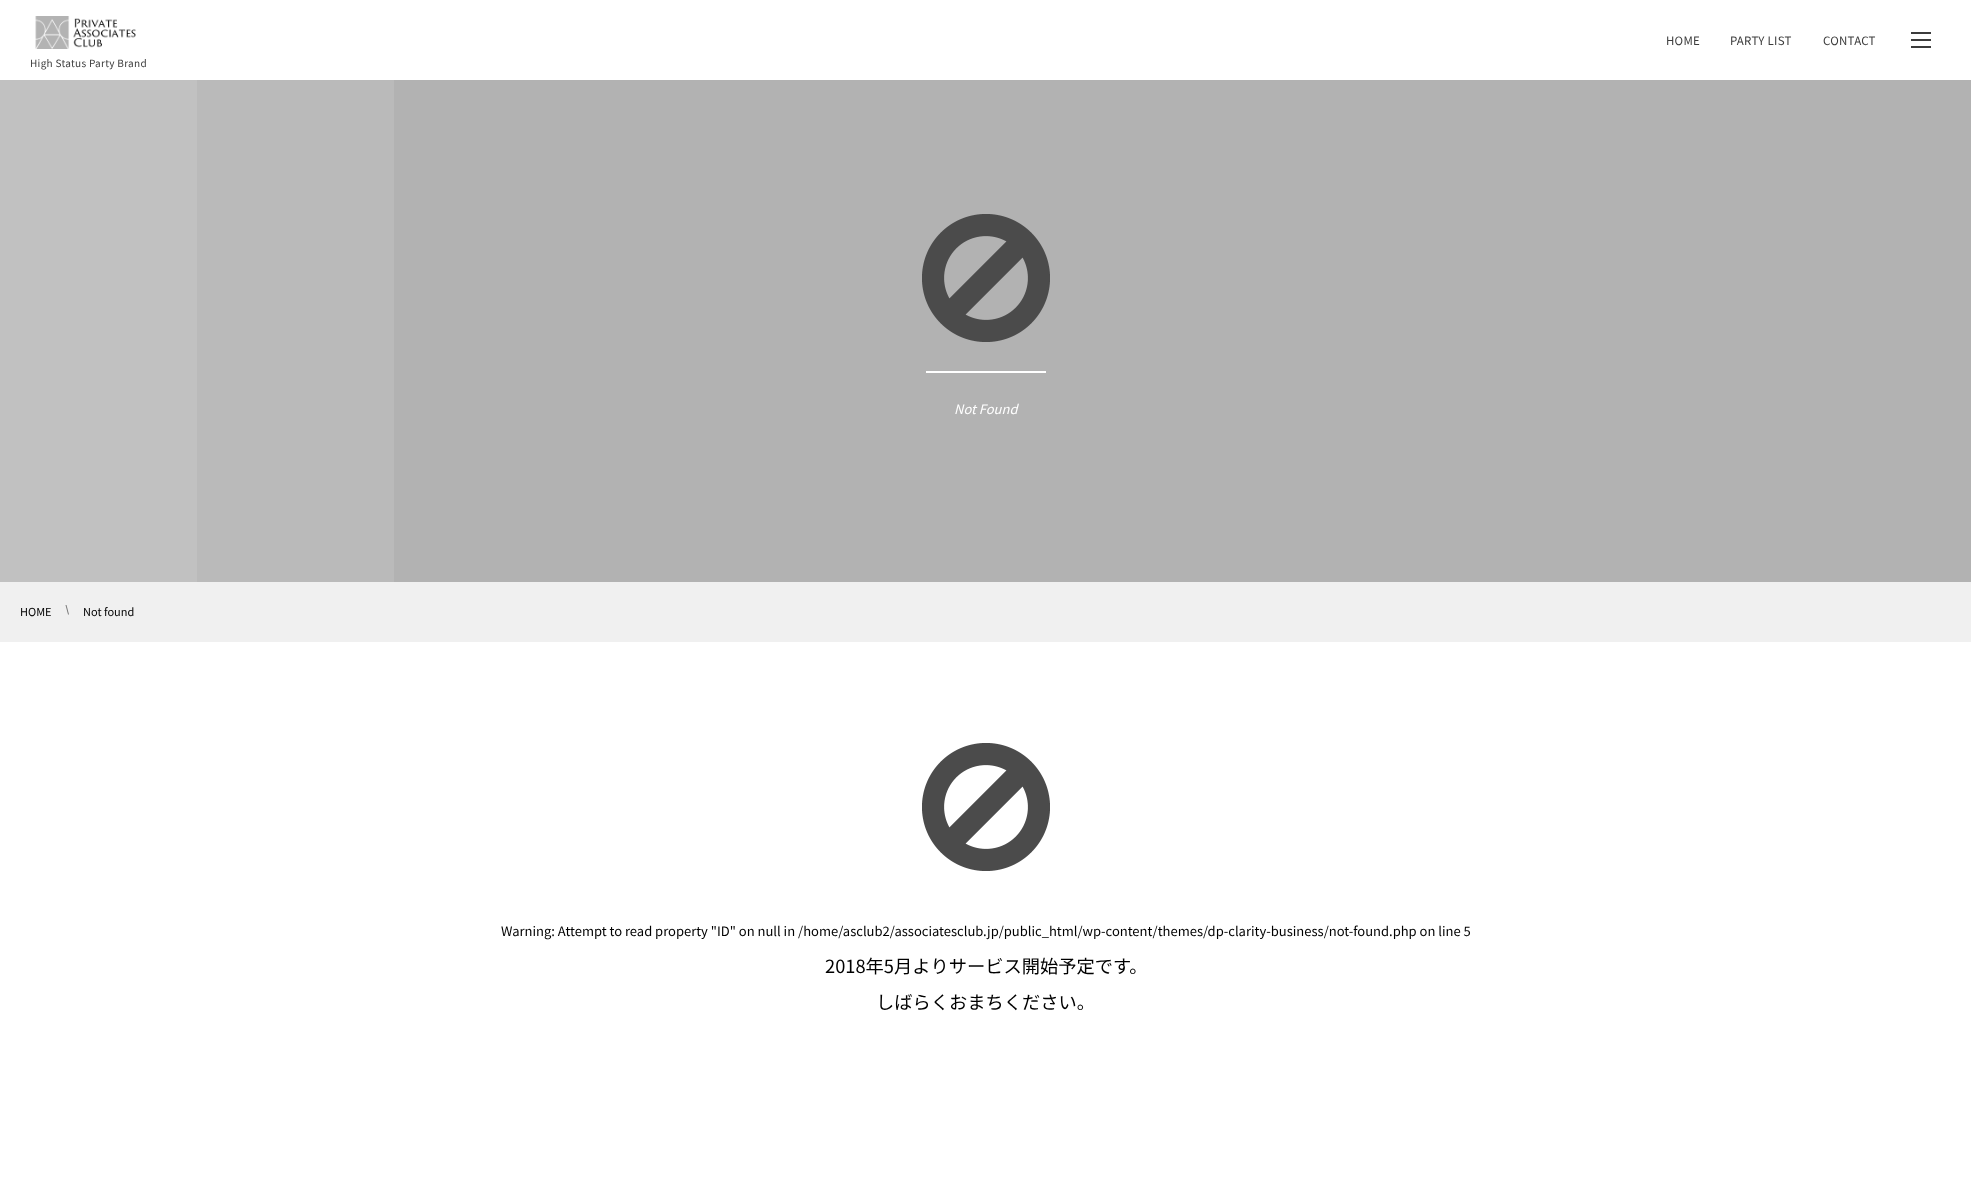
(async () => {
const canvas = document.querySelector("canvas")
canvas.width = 1971
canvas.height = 1190
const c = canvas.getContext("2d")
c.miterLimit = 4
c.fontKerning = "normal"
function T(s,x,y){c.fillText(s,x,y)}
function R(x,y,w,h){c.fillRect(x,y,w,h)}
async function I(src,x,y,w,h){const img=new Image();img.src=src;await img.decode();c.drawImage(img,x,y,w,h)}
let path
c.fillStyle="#fff"
R(0,0,1971,1190)
c.letterSpacing="0.25px"
c.font="11.5px Noto Sans JP"
c.fillStyle="#3c3c3c"
T("HOME",1666,45)
T("PARTY LIST",1730,45)
T("CONTACT",1823,45)
R(1911,32,20,2)
R(1911,39,20,2)
R(1911,46,20,2)
await I("1.png",35,16,101,33)
c.letterSpacing="0.3px"
c.font="10px Noto Sans JP"
T("High Status Party Brand",30,67)
c.fillStyle="#b2b2b2"
R(394,80,1577,502)
c.fillStyle="#c1c1c1"
R(0,80,197,502)
c.fillStyle="#bababa"
R(197,80,197,502)
await I("2.png",922,214,128,128)
c.fillStyle="#fff"
R(926,371,120,2)
c.letterSpacing="0px"
c.font="italic 13px Noto Sans JP"
T("Not Found",954,414)
c.fillStyle="#f0f0f0"
R(0,582,1971,60)
c.font="11px Noto Sans JP"
c.fillStyle="#000"
T("HOME",20,616)
c.fillStyle="#787878"
path = new Path2D("M65.5 605h1l2.5 9.5h-1z")
c.fill(path)
c.fillStyle="#000"
T("Not found",83,616)
await I("3.png",922,743,128,128)
c.font="13px Noto Sans JP"
T("Warning: Attempt to read property \"ID\" on null in /home/asclub2/associatesclub.jp/public_html/wp-content/themes/dp-clarity-business/not-found.php on line 5",501,936)
c.font="18.25px Noto Sans JP"
T("2018年5月よりサービス開始予定です。",825,973)
T("しばらくおまちください。",876,1009)
})()
